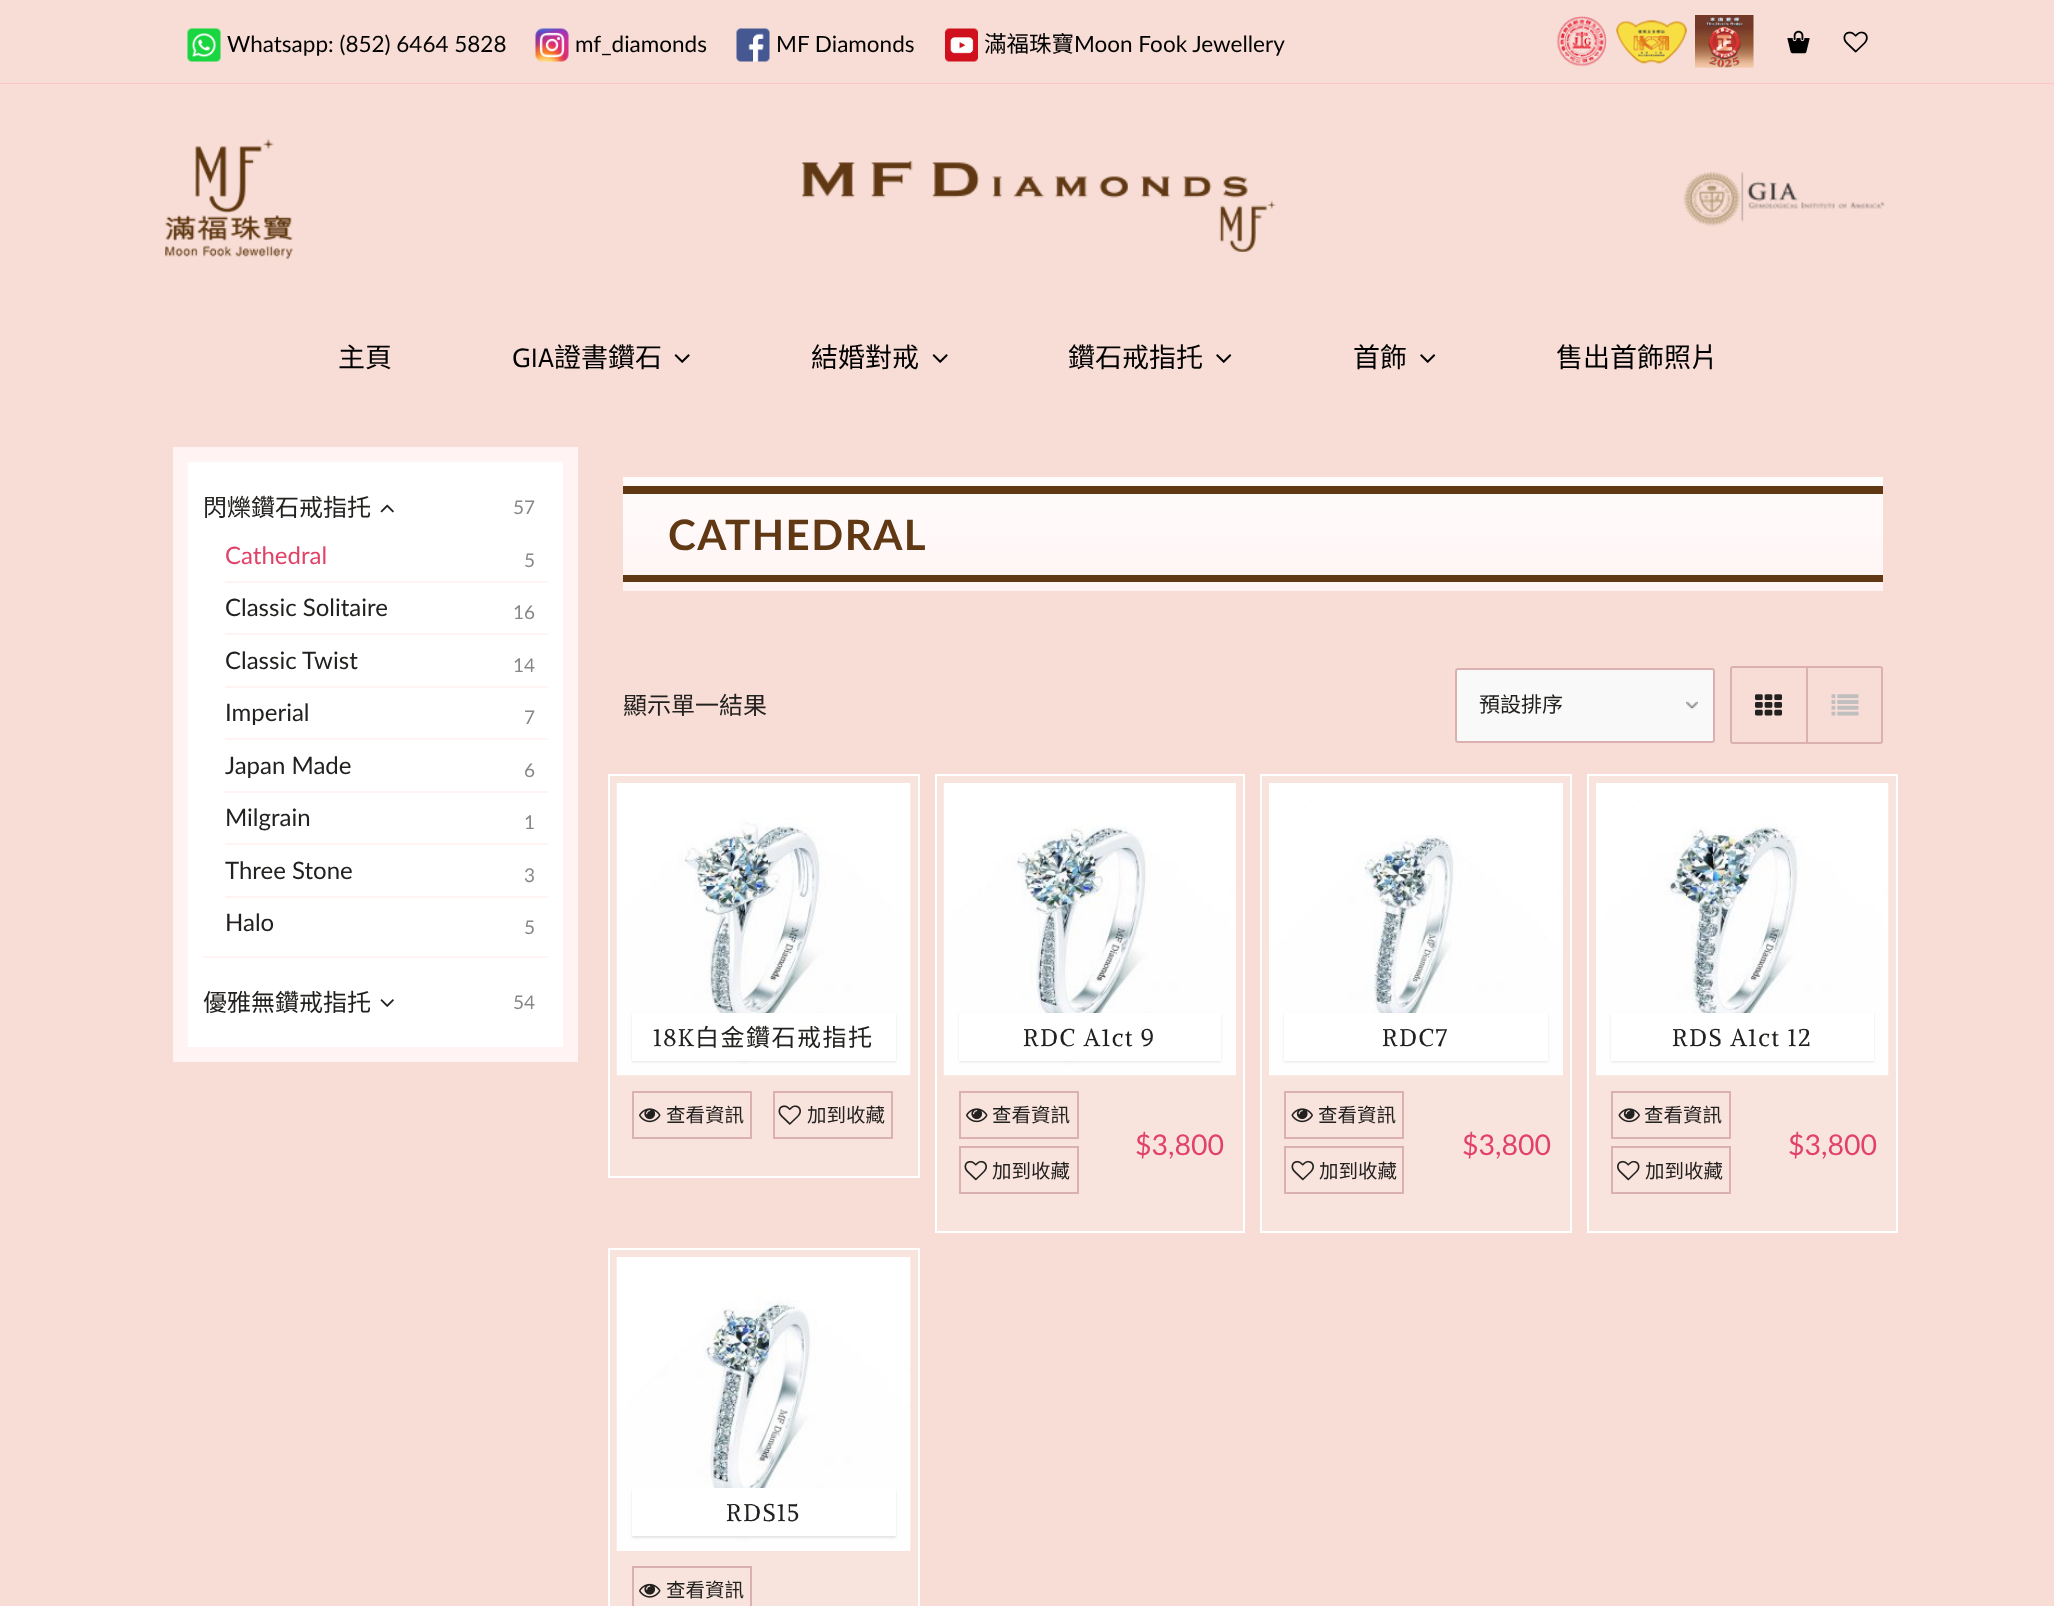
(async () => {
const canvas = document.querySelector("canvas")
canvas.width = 2054
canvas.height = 1606
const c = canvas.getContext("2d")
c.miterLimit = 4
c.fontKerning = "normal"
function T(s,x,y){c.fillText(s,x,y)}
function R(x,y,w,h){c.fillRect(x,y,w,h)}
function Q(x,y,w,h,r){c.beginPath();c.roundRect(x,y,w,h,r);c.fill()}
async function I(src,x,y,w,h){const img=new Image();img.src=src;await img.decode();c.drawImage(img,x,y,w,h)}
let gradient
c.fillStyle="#f7ddd5"
R(0,0,2054,1606)
c.fillStyle="#fdc6c6"
R(0,83,2054,1)
await I("1.png",187,28,34,34)
c.font="22.5px Lato"
c.fillStyle="#000"
T("Whatsapp: (852) 6464 5828",227,52)
await I("2.png",535,28,34,34)
T("mf_diamonds",575,52)
await I("3.png",736,28,34,34)
T("MF Diamonds",776,52)
await I("4.png",945,28,33,34)
c.font="22.5px Noto Sans CJK TC"
T("滿福珠寶",984,52)
c.font="22.5px Lato"
T("Moon Fook Jewellery",1074,52)
await I("5.png",1556,16,52,51)
await I("6.png",1616,20,71,44)
await I("7.png",1695,15,59,53)
await I("8.png",1787,30,23,24)
await I("9.png",1843,31,25,22)
await I("10.png",165,139,128,120)
await I("11.png",802,160,474,92)
await I("12.png",1683,171,202,56)
c.font="27px Noto Sans CJK TC"
T("主頁",338,367)
c.font="27px Actor"
T("GIA",512,367)
c.font="27px Noto Sans CJK TC"
T("證書鑽石",554,367)
await I("13.png",674,354,16,9)
T("結婚對戒",811,367)
await I("13.png",932,354,16,9)
T("鑽石戒指托",1068,367)
await I("14.png",1216,354,16,9)
T("首飾",1353,367)
await I("14.png",1420,354,16,9)
T("售出首飾照片",1556,367)
c.fillStyle="#fff"
c.beginPath()
c.rect(180.5,454.5,390,600)
c.fill()
c.strokeStyle="#fff3f3"
c.lineWidth=15
c.stroke()
c.fillStyle="#fff3f3"
R(203,956,345,2)
c.font="24px Noto Sans CJK TC"
c.fillStyle="#22211f"
T("閃爍鑽石戒指托",203,516)
await I("15.png",380,504,14,9)
c.font="19px Lato"
c.fillStyle="#888"
T("57",513,514)
c.fillStyle="#fff3f3"
R(225,581,323,2)
c.font="24px Lato"
c.fillStyle="#e14267"
T("Cathedral",225,564)
c.font="19px Lato"
c.fillStyle="#888"
T("5",524,567)
c.fillStyle="#fff3f3"
R(225,633,323,2)
c.font="24px Lato"
c.fillStyle="#22211f"
T("Classic Solitaire",225,616)
c.font="19px Lato"
c.fillStyle="#888"
T("16",513,619)
c.fillStyle="#fff3f3"
R(225,686,323,2)
c.font="24px Lato"
c.fillStyle="#22211f"
T("Classic Twist",225,669)
c.font="19px Lato"
c.fillStyle="#888"
T("14",513,672)
c.fillStyle="#fff3f3"
R(225,738,323,2)
c.font="24px Lato"
c.fillStyle="#22211f"
T("Imperial",225,721)
c.font="19px Lato"
c.fillStyle="#888"
T("7",524,724)
c.fillStyle="#fff3f3"
R(225,791,323,2)
c.font="24px Lato"
c.fillStyle="#22211f"
T("Japan Made",225,774)
c.font="19px Lato"
c.fillStyle="#888"
T("6",524,777)
c.fillStyle="#fff3f3"
R(225,843,323,2)
c.font="24px Lato"
c.fillStyle="#22211f"
T("Milgrain",225,826)
c.font="19px Lato"
c.fillStyle="#888"
T("1",524,829)
c.fillStyle="#fff3f3"
R(225,896,323,2)
c.font="24px Lato"
c.fillStyle="#22211f"
T("Three Stone",225,879)
c.font="19px Lato"
c.fillStyle="#888"
T("3",524,882)
c.font="24px Lato"
c.fillStyle="#22211f"
T("Halo",225,931)
c.font="19px Lato"
c.fillStyle="#888"
T("5",524,934)
c.font="24px Noto Sans CJK TC"
c.fillStyle="#22211f"
T("優雅無鑽戒指托",203,1011)
await I("16.png",380,999,14,8)
c.font="19px Lato"
c.fillStyle="#888"
T("54",513,1009)
gradient = c.createLinearGradient(1253,477,1253,591)
gradient.addColorStop(0,"#fffcfc")
gradient.addColorStop(1,"#fff4f4")
c.fillStyle = gradient
R(623,477,1260,114)
c.fillStyle="#603813"
R(623,486,1260,8)
R(623,575,1260,7)
c.letterSpacing="1.5px"
c.font="bold 42px Lato"
T("CATHEDRAL",668,550)
c.letterSpacing="0px"
c.font="24px Noto Sans CJK TC"
c.fillStyle="#22211f"
T("顯示單一結果",623,714)
c.fillStyle="#f9f9f9"
Q(1455,668,260,75,3)
await I("17.png",1686,701,12,8)
c.beginPath()
c.roundRect(1456,669,258,73,2)
c.strokeStyle="#dab0b0"
c.lineWidth=2
c.stroke()
c.font="21px Noto Sans CJK TC"
c.fillStyle="#22211f"
T("預設排序",1479,712)
c.beginPath()
c.roundRect(1731,667,151,76,2)
c.stroke()
await I("18.png",1755,694,27,22)
c.fillStyle="#dab0b0"
R(1806,668,2,75)
await I("19.png",1831,694,28,22)
c.fillStyle="#f9e3dd"
c.beginPath()
c.rect(609,775,310,402)
c.fill()
c.strokeStyle="#fff"
c.stroke()
await I("20.png",616,783,295,293)
c.fillStyle="#0000001a"
c.filter="blur(1px)"
c.beginPath()
c.rect(632,1014,264,48)
c.fill()
c.filter="none"
c.fillStyle="#fff"
R(632,1013,264,48)
c.letterSpacing="1.5px"
c.font="24px Alike Angular"
c.fillStyle="#22211f"
T("18K",653,1046)
c.font="24px Noto Sans CJK TC"
T("白金鑽石戒指托",695,1046)
c.strokeStyle="#dab0b0"
c.strokeRect(633,1092,118,46)
await I("21.png",639,1108,22,15)
c.letterSpacing="0px"
c.font="19.5px Noto Sans CJK TC"
T("查看資訊",666,1122)
c.strokeRect(774,1092,118,46)
await I("22.png",778,1105,23,20)
T("加到收藏",807,1122)
c.fillStyle="#f9e3dd"
c.beginPath()
c.rect(936,775,308,457)
c.fill()
c.strokeStyle="#fff"
c.stroke()
await I("23.png",943,783,293,293)
c.fillStyle="#0000001a"
c.filter="blur(1px)"
c.beginPath()
c.rect(959,1014,262,48)
c.fill()
c.filter="none"
c.fillStyle="#fff"
R(959,1013,262,48)
c.letterSpacing="1.5px"
c.font="24px Alike Angular"
c.fillStyle="#22211f"
T("RDC A1ct 9",1023,1046)
c.strokeStyle="#dab0b0"
c.strokeRect(960,1092,118,46)
await I("21.png",966,1108,22,15)
c.letterSpacing="0px"
c.font="19.5px Noto Sans CJK TC"
T("查看資訊",992,1122)
c.strokeRect(960,1147,118,46)
await I("24.png",964,1160,23,21)
T("加到收藏",992,1178)
c.font="28.5px Lato"
c.fillStyle="#e14267"
T("$3,800",1135,1155)
c.fillStyle="#f9e3dd"
c.beginPath()
c.rect(1261,775,310,457)
c.fill()
c.strokeStyle="#fff"
c.stroke()
await I("25.png",1269,783,294,293)
c.fillStyle="#0000001a"
c.filter="blur(1px)"
c.beginPath()
c.rect(1284,1014,264,48)
c.fill()
c.filter="none"
c.fillStyle="#fff"
R(1284,1013,264,48)
c.letterSpacing="1.5px"
c.font="24px Alike Angular"
c.fillStyle="#22211f"
T("RDC7",1382,1046)
c.strokeStyle="#dab0b0"
c.strokeRect(1285,1092,118,46)
await I("26.png",1291,1108,22,15)
c.letterSpacing="0px"
c.font="19.5px Noto Sans CJK TC"
T("查看資訊",1318,1122)
c.strokeRect(1285,1147,118,46)
await I("24.png",1291,1160,23,21)
T("加到收藏",1319,1178)
c.font="28.5px Lato"
c.fillStyle="#e14267"
T("$3,800",1462,1155)
c.fillStyle="#f9e3dd"
c.beginPath()
c.rect(1588,775,309,457)
c.fill()
c.strokeStyle="#fff"
c.stroke()
await I("27.png",1596,783,293,293)
c.fillStyle="#0000001a"
c.filter="blur(1px)"
c.beginPath()
c.rect(1611,1014,263,48)
c.fill()
c.filter="none"
c.fillStyle="#fff"
R(1611,1013,263,48)
c.letterSpacing="1.5px"
c.font="24px Alike Angular"
c.fillStyle="#22211f"
T("RDS A1ct 12",1672,1046)
c.strokeStyle="#dab0b0"
c.strokeRect(1612,1092,118,46)
await I("26.png",1618,1108,22,15)
c.letterSpacing="0px"
c.font="19.5px Noto Sans CJK TC"
T("查看資訊",1644,1122)
c.strokeRect(1612,1147,118,46)
await I("28.png",1617,1160,23,21)
T("加到收藏",1645,1178)
c.font="28.5px Lato"
c.fillStyle="#e14267"
T("$3,800",1788,1155)
c.fillStyle="#f9e4dd"
c.beginPath()
c.rect(609,1249,310,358)
c.fill()
c.strokeStyle="#fff"
c.stroke()
await I("29.png",616,1257,295,294)
c.fillStyle="#0000001a"
c.filter="blur(1px)"
c.beginPath()
c.rect(632,1490,264,48)
c.fill()
c.filter="none"
c.fillStyle="#fff"
R(632,1488,264,48)
c.letterSpacing="1.5px"
c.font="24px Alike Angular"
c.fillStyle="#22211f"
T("RDS15",726,1521)
c.strokeStyle="#dab0b0"
c.strokeRect(633,1567,118,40)
await I("30.png",639,1583,22,15)
c.letterSpacing="0px"
c.font="19.5px Noto Sans CJK TC"
T("查看資訊",666,1597)
})()
